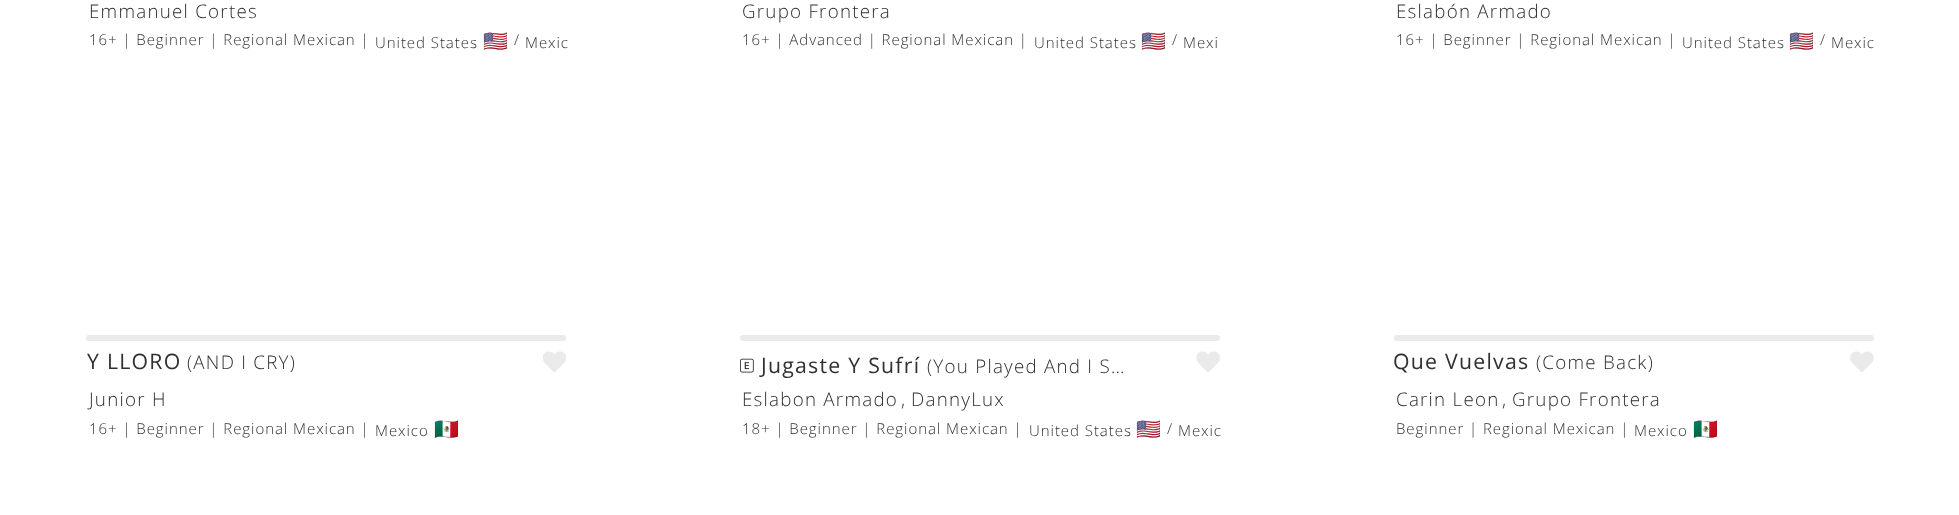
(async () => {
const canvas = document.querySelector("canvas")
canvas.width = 1959
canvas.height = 515
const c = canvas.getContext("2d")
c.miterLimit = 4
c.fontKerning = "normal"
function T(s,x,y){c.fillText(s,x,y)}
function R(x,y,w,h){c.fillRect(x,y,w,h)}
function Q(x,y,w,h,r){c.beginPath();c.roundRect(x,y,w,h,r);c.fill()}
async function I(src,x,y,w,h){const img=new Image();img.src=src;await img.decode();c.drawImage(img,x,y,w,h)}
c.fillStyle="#fff"
R(0,0,1959,515)
c.letterSpacing="1.25px"
c.font="300 18.75px Open Sans"
c.fillStyle="#303030"
T("Emmanuel Cortes",89,18)
c.letterSpacing="0.95px"
c.font="300 15px Open Sans"
T("16+ | Beginner | Regional Mexican |",89,45)
T("United States",375,48)
c.font="20px Noto Color Emoji"
T("🇺🇸",483,48)
c.font="300 15px Open Sans"
T("/",514,45)
T("Mexic",525,48)
c.letterSpacing="1.25px"
c.font="300 18.75px Open Sans"
T("Grupo Frontera",742,18)
c.letterSpacing="0.95px"
c.font="300 15px Open Sans"
T("16+ | Advanced | Regional Mexican |",742,45)
T("United States",1034,48)
c.font="20px Noto Color Emoji"
T("🇺🇸",1141,48)
c.font="300 15px Open Sans"
T("/",1172,45)
T("Mexi",1183,48)
c.letterSpacing="1.25px"
c.font="300 18.75px Open Sans"
T("Eslabón Armado",1396,18)
c.letterSpacing="0.95px"
c.font="300 15px Open Sans"
T("16+ | Beginner | Regional Mexican |",1396,45)
T("United States",1682,48)
c.font="20px Noto Color Emoji"
T("🇺🇸",1789,48)
c.font="300 15px Open Sans"
T("/",1820,45)
T("Mexic",1831,48)
c.fillStyle="#eaeaea"
Q(86,335,480,6,3)
c.letterSpacing="1.25px"
c.font="21.25px Open Sans"
c.fillStyle="#303030"
T("Y LLORO",87,369)
c.font="300 18.75px Open Sans"
T("(AND I CRY)",187,369)
await I("1.png",543,351,23,22)
T("Junior H",89,406)
c.letterSpacing="0.95px"
c.font="300 15px Open Sans"
T("16+ | Beginner | Regional Mexican |",89,434)
T("Mexico",375,436)
c.font="20px Noto Color Emoji"
T("🇲🇽",434,436)
c.fillStyle="#eaeaea"
Q(740,335,480,6,3)
await I("2.png",740,358,14,15)
c.letterSpacing="1.25px"
c.font="21.25px Open Sans"
c.fillStyle="#303030"
T("Jugaste Y Sufrí",761,373)
c.font="300 18.75px Open Sans"
T("(You Played And I S…",927,373)
await I("3.png",1196,351,24,21)
T("Eslabon Armado",742,406)
T(",",901,406)
T("DannyLux",911,406)
c.letterSpacing="0.95px"
c.font="300 15px Open Sans"
T("18+ | Beginner | Regional Mexican |",742,434)
T("United States",1029,436)
c.font="20px Noto Color Emoji"
T("🇺🇸",1136,436)
c.font="300 15px Open Sans"
T("/",1167,434)
T("Mexic",1178,436)
c.fillStyle="#eaeaea"
Q(1394,335,480,6,3)
c.letterSpacing="1.25px"
c.font="21.25px Open Sans"
c.fillStyle="#303030"
T("Que Vuelvas",1393,369)
c.font="300 18.75px Open Sans"
T("(Come Back)",1536,369)
await I("4.png",1850,351,24,21)
T("Carin Leon",1396,406)
T(",",1502,406)
T("Grupo Frontera",1512,406)
c.letterSpacing="0.95px"
c.font="300 15px Open Sans"
T("Beginner | Regional Mexican |",1396,434)
T("Mexico",1634,436)
c.font="20px Noto Color Emoji"
T("🇲🇽",1693,436)
})()
